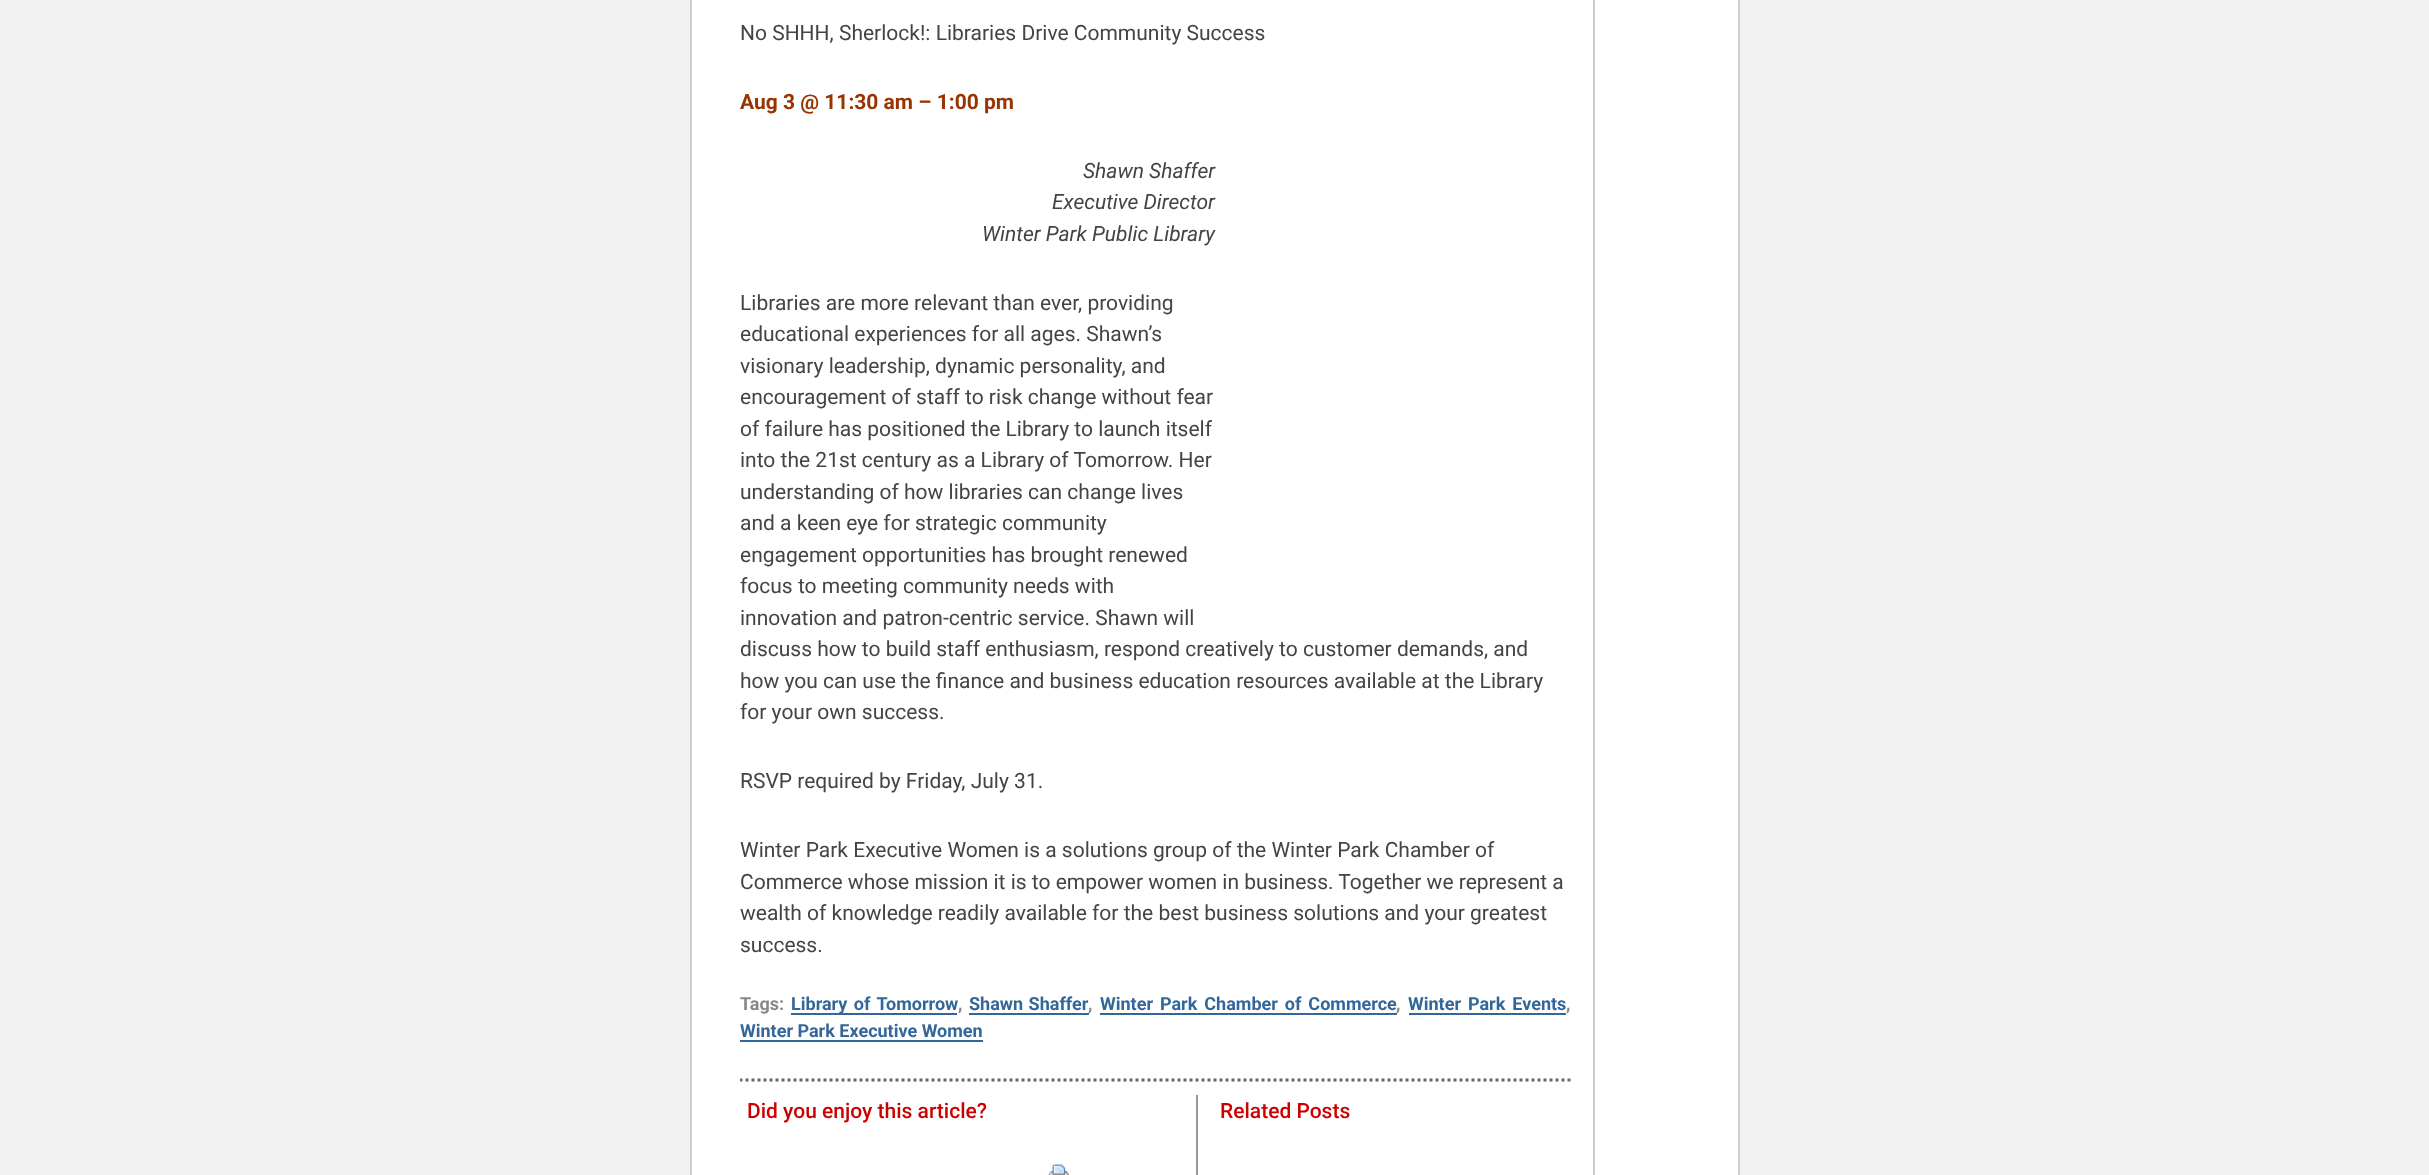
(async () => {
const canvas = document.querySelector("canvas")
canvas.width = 2429
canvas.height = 1175
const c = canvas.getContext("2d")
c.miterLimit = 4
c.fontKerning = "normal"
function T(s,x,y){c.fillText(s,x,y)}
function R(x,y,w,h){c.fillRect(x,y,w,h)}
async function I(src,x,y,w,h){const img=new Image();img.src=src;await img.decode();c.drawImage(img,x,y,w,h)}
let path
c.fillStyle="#f1f1f1"
R(0,0,2429,1175)
c.fillStyle="#fff"
c.beginPath()
c.rect(691,-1,1048,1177)
c.fill()
c.strokeStyle="#ccd0d4"
c.lineWidth=2
c.stroke()
c.fillStyle="#ccc"
R(1593,0,2,1175)
c.save()
c.beginPath()
c.rect(740,0,951,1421)
c.clip()
path = new Path2D("M739.5 1080h831")
c.strokeStyle="#666"
c.lineWidth=3
c.setLineDash([3,3])
c.stroke(path)
c.restore()
c.font="21px Roboto"
c.fillStyle="#444"
T("No SHHH, Sherlock!: Libraries Drive Community Success",740,40)
c.font="bold 21px Roboto"
c.fillStyle="#930"
T("Aug 3 @ 11:30 am – 1:00 pm",740,109)
c.font="italic 21px Roboto"
c.fillStyle="#444"
T("Shawn Shaffer",1083,178)
T("Executive Director",1052,209)
T("Winter Park Public Library",982,241)
c.font="21px Roboto"
T("Libraries are more relevant than ever, providing",740,310)
T("educational experiences for all ages. Shawn’s",740,341)
T("visionary leadership, dynamic personality, and",740,373)
T("encouragement of staff to risk change without fear",740,404)
T("of failure has positioned the Library to launch itself",740,436)
T("into the 21st century as a Library of Tomorrow. Her",740,467)
T("understanding of how libraries can change lives",740,499)
T("and a keen eye for strategic community",740,530)
T("engagement opportunities has brought renewed",740,562)
T("focus to meeting community needs with",740,593)
T("innovation and patron-centric service. Shawn will",740,625)
T("discuss how to build staff enthusiasm, respond creatively to customer demands, and",740,656)
T("how you can use the finance and business education resources available at the Library",740,688)
T("for your own success.",740,719)
T("RSVP required by Friday, July 31.",740,788)
T("Winter Park Executive Women is a solutions group of the Winter Park Chamber of",740,857)
T("Commerce whose mission it is to empower women in business. Together we represent a",740,889)
T("wealth of knowledge readily available for the best business solutions and your greatest",740,920)
T("success.",740,952)
c.font="bold 18px Roboto"
c.fillStyle="#888"
T("Tags:",740,1010)
c.fillStyle="#369"
R(791,1013,166,2)
c.wordSpacing="2px"
T("Library of Tomorrow",791,1010)
c.wordSpacing="0px"
c.fillStyle="#888"
T(",",958,1010)
c.wordSpacing="1px"
c.fillStyle="#369"
T("Shawn Shaffer",969,1010)
R(969,1013,120,2)
c.wordSpacing="0px"
c.fillStyle="#888"
T(",",1088,1010)
c.wordSpacing="2.5px"
c.fillStyle="#369"
T("Winter Park Chamber of Commerce",1100,1010)
R(1100,1013,297,2)
c.wordSpacing="0px"
c.fillStyle="#888"
T(",",1396,1010)
c.wordSpacing="2.5px"
c.fillStyle="#369"
T("Winter Park Events",1408,1010)
R(1409,1013,157,2)
c.wordSpacing="0px"
c.fillStyle="#888"
T(",",1566,1010)
c.fillStyle="#369"
T("Winter Park Executive Women",740,1037)
R(740,1040,243,2)
c.font="500 21px Roboto"
c.fillStyle="#c00"
T("Did you enjoy this article?",747,1118)
await I("1.png",1048,1164,21,11)
c.fillStyle="#979797"
R(1196,1095,2,80)
c.fillStyle="#c00"
T("Related Posts",1220,1118)
})()
